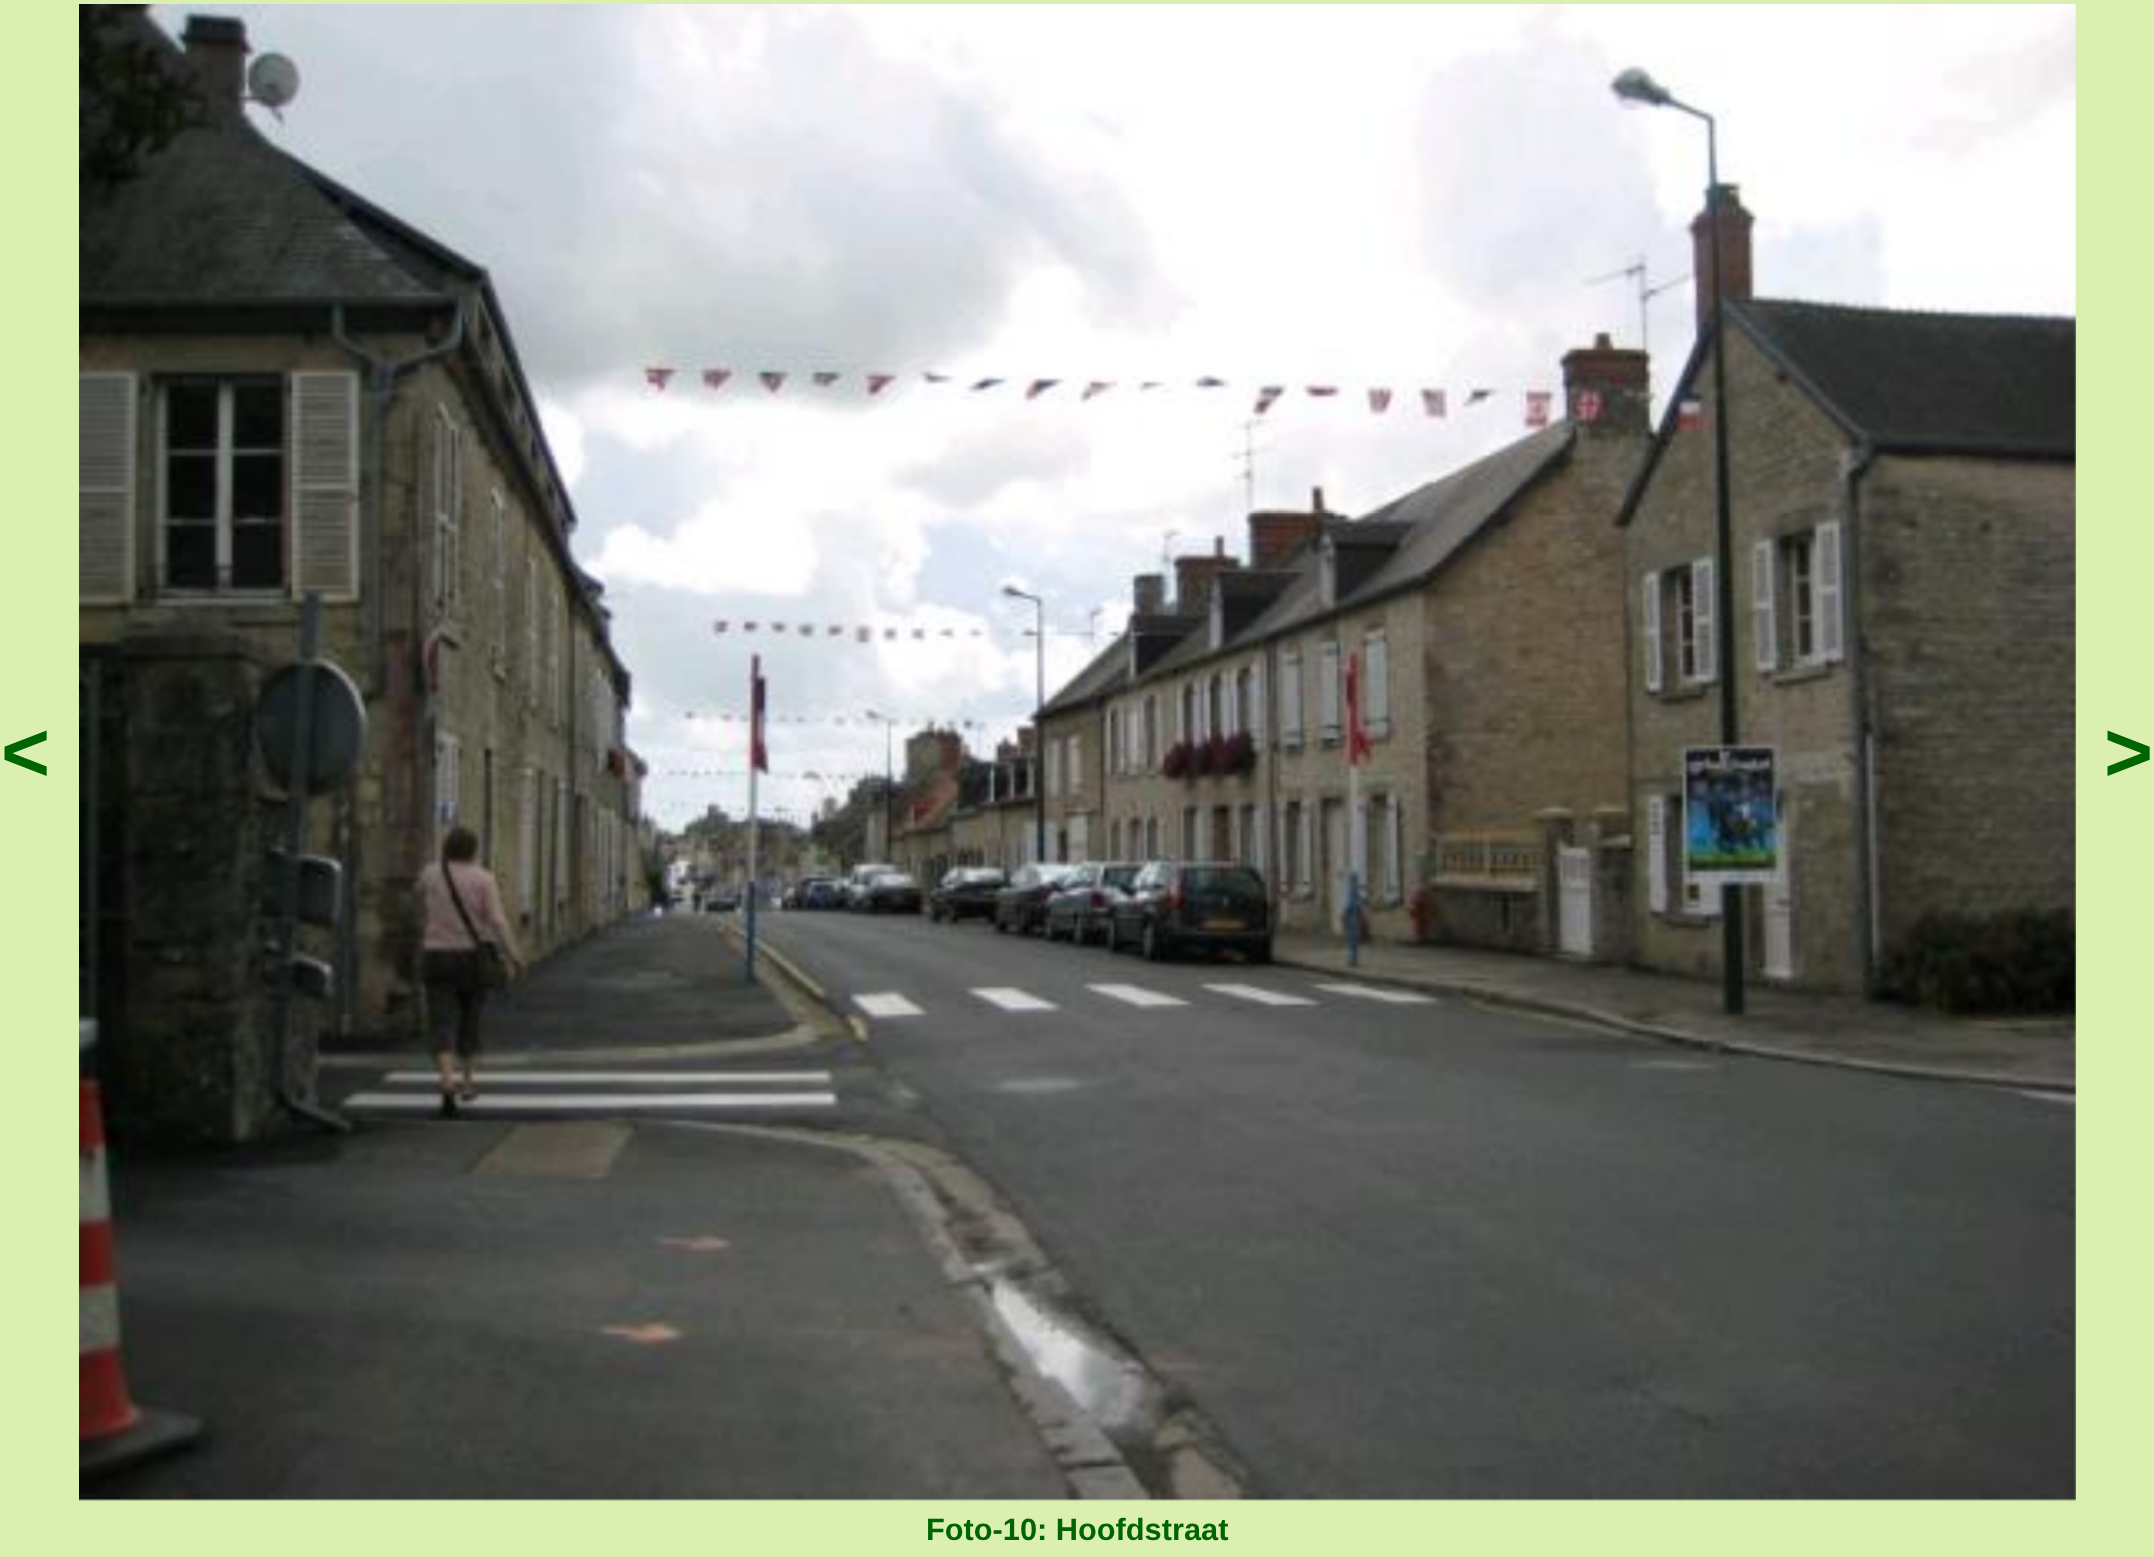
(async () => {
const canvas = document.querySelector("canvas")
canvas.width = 2154
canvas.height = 1557
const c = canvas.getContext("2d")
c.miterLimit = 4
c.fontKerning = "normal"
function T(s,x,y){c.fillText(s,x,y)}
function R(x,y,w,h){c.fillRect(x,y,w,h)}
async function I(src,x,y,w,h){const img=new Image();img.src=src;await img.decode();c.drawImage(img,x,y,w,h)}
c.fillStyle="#dbefb1"
R(0,0,2154,1557)
c.font="bold 84px Liberation Sans"
c.fillStyle="#006400"
T("<",1,781)
await I("1.png",79,4,1997,1497)
T(">",2104,781)
c.font="bold 30.75px Liberation Sans"
T("Foto-10: Hoofdstraat",926,1540)
})()
